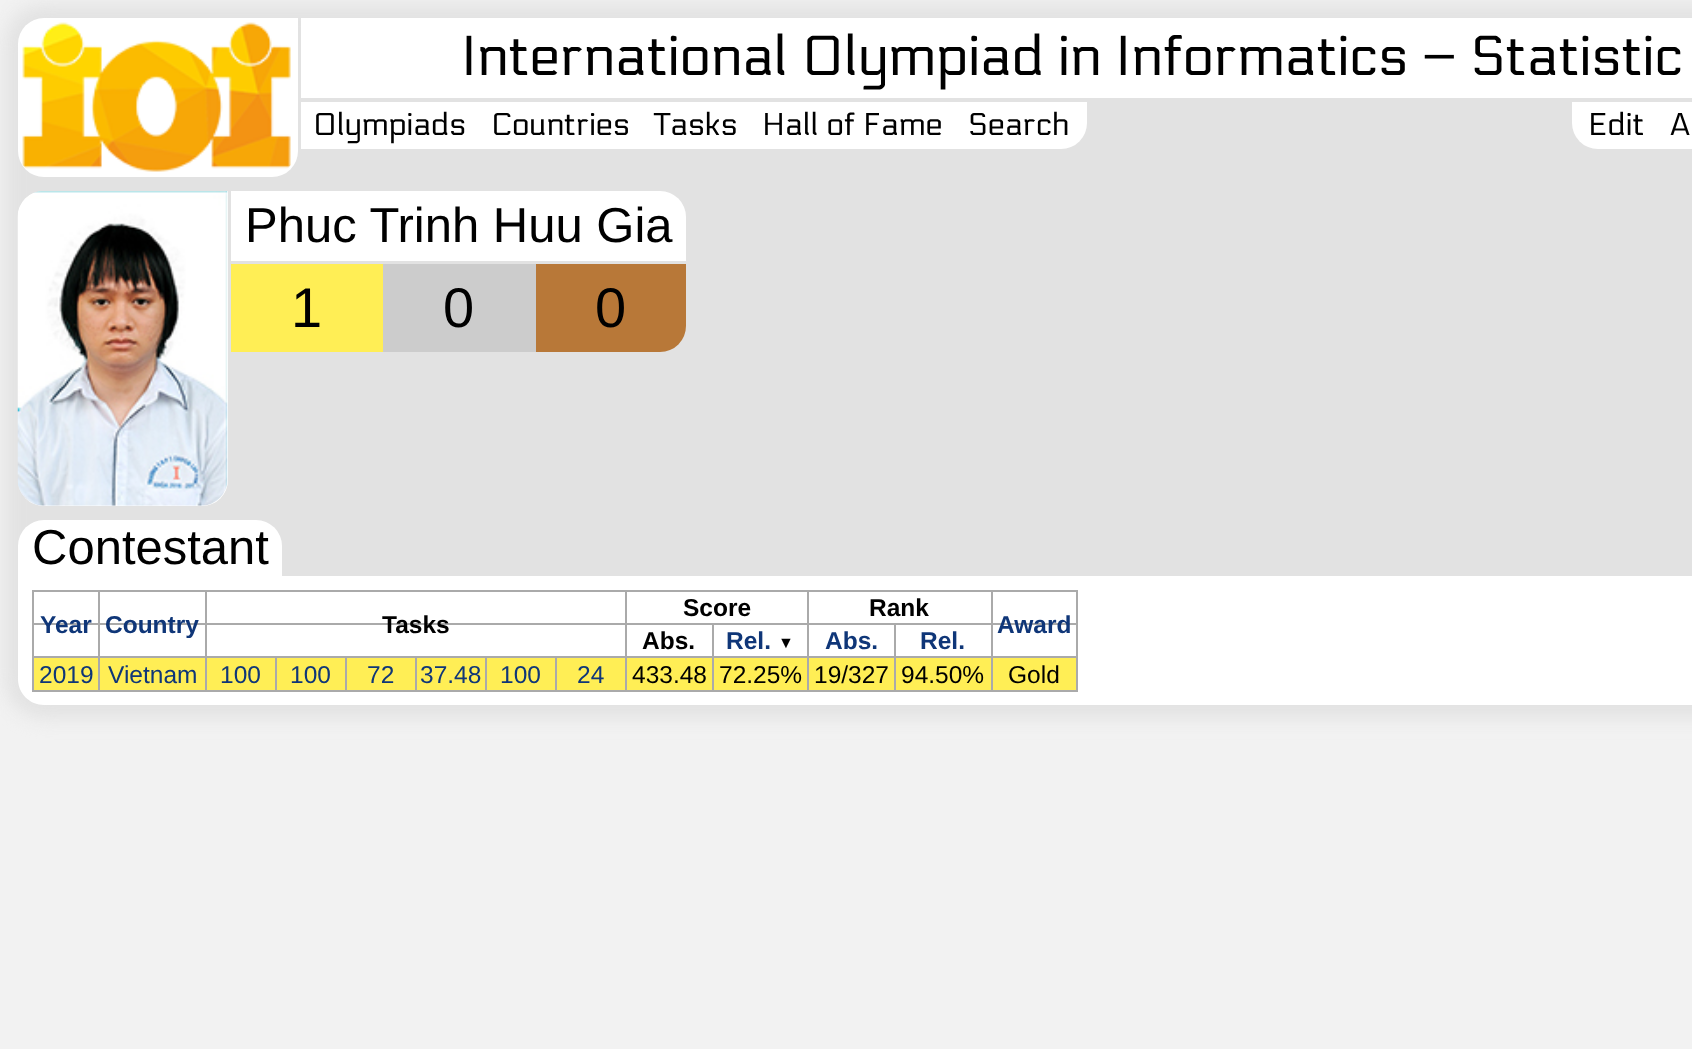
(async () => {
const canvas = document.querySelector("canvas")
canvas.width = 1692
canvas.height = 1049
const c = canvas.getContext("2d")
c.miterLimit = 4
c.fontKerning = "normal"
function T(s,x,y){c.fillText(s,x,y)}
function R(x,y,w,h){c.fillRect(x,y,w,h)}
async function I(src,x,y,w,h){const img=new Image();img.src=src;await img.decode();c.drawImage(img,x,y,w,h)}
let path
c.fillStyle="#f2f2f2"
R(0,0,1692,1049)
c.fillStyle="#e2e2e2"
c.filter="blur(9px)"
c.beginPath()
c.roundRect(5,5,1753,713,39)
c.fill()
c.filter="none"
c.fillStyle="#fff"
c.beginPath()
c.roundRect(18,18,280,159,[26,0,26,26])
c.fill()
await I("1.png",22,22,269,150)
R(301,18,1391,80)
c.font="56px Electrolize"
c.fillStyle="#000"
T("International Olympiad in Informatics – Statistic",461,75)
c.fillStyle="#fff"
R(301,102,655,47)
c.font="31.5px Electrolize"
c.fillStyle="#000"
T("Olympiads",313,135)
T("Countries",491,135)
T("Tasks",654,135)
T("Hall of Fame",762,135)
c.fillStyle="#fff"
c.beginPath()
c.roundRect(956,102,131,47,[0,0,26,0])
c.fill()
c.fillStyle="#000"
T("Search",968,135)
c.fillStyle="#fff"
c.beginPath()
c.roundRect(1572,102,85,47,[0,0,0,26])
c.fill()
c.fillStyle="#000"
T("Edit",1588,135)
c.fillStyle="#fff"
R(1657,102,35,47)
c.fillStyle="#000"
T("A",1669,135)
c.fillStyle="#fff"
c.beginPath()
c.roundRect(18,191,210,315,[26,0,26,26])
c.fill()
await I("2.png",17,191,211,315)
c.beginPath()
c.roundRect(231,191,455,70,[0,26,0,0])
c.fill()
c.font="49px Liberation Sans"
c.fillStyle="#000"
T("Phuc Trinh Huu Gia",245,242)
c.fillStyle="#fe5"
R(231,264,152,88)
c.font="56px Liberation Sans"
c.fillStyle="#000"
T("1",291,327)
c.fillStyle="#ccc"
R(383,264,153,88)
c.fillStyle="#000"
T("0",443,327)
c.fillStyle="#b87838"
c.beginPath()
c.roundRect(536,264,150,88,[0,0,26,0])
c.fill()
c.fillStyle="#000"
T("0",595,327)
c.fillStyle="#fff"
c.beginPath()
c.roundRect(18,520,264,56,[26,26,0,0])
c.fill()
c.font="49px Liberation Sans"
c.fillStyle="#000"
T("Contestant",32,564)
c.fillStyle="#fff"
path = new Path2D("M18 576h1674c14.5 0 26 11.5 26 26v77c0 14.5-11.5 26-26 26h-1648c-14.5 0-26-11.5-26-26z")
c.fill(path)
c.fillStyle="#aaa"
R(32,590,1046,2)
R(1076,590,2,101)
R(32,690,1046,2)
R(32,590,2,101)
c.font="bold 24.5px Liberation Sans"
c.fillStyle="#000"
T("Score",683,616)
T("Rank",869,616)
c.fillStyle="#aaa"
R(32,623,1046,2)
c.fillStyle="#0f3678"
T("Year",40,633)
T("Country",105,633)
c.fillStyle="#000"
T("Tasks",382,633)
c.fillStyle="#0f3678"
T("Award",997,633)
c.fillStyle="#000"
T("Abs.",642,649)
c.fillStyle="#0f3678"
T("Rel.",726,649)
c.font="bold 16px Liberation Sans"
c.fillStyle="#000"
T("▼",778,648)
c.font="bold 24.5px Liberation Sans"
c.fillStyle="#0f3678"
T("Abs.",825,649)
T("Rel.",920,649)
c.fillStyle="#aaa"
R(32,656,1046,2)
c.fillStyle="#fe5"
R(34,658,64,32)
c.font="24.5px Liberation Sans"
c.fillStyle="#0f3678"
T("2019",39,683)
c.fillStyle="#fe5"
R(100,658,105,32)
c.fillStyle="#aaa"
R(98,590,2,101)
c.fillStyle="#0f3678"
T("Vietnam",108,683)
c.fillStyle="#fe5"
R(207,658,68,32)
c.fillStyle="#aaa"
R(205,590,2,101)
c.fillStyle="#0f3678"
T("100",220,683)
c.fillStyle="#fe5"
R(277,658,68,32)
c.fillStyle="#aaa"
R(275,656,2,35)
c.fillStyle="#0f3678"
T("100",290,683)
c.fillStyle="#fe5"
R(347,658,68,32)
c.fillStyle="#aaa"
R(345,656,2,35)
c.fillStyle="#0f3678"
T("72",367,683)
c.fillStyle="#fe5"
R(417,658,68,32)
c.fillStyle="#aaa"
R(415,656,2,35)
c.fillStyle="#0f3678"
T("37.48",420,683)
c.fillStyle="#fe5"
R(487,658,68,32)
c.fillStyle="#aaa"
R(485,656,2,35)
c.fillStyle="#0f3678"
T("100",500,683)
c.fillStyle="#fe5"
R(557,658,68,32)
c.fillStyle="#aaa"
R(555,656,2,35)
c.fillStyle="#0f3678"
T("24",577,683)
c.fillStyle="#fe5"
R(627,658,85,32)
c.fillStyle="#aaa"
R(625,590,2,101)
c.fillStyle="#000"
T("433.48",632,683)
c.fillStyle="#fe5"
R(714,658,93,32)
c.fillStyle="#aaa"
R(712,623,2,68)
c.fillStyle="#000"
T("72.25%",719,683)
c.fillStyle="#fe5"
R(809,658,85,32)
c.fillStyle="#aaa"
R(807,590,2,101)
c.fillStyle="#000"
T("19/327",814,683)
c.fillStyle="#fe5"
R(896,658,95,32)
c.fillStyle="#aaa"
R(894,623,2,68)
c.fillStyle="#000"
T("94.50%",901,683)
c.fillStyle="#fe5"
R(993,658,83,32)
c.fillStyle="#aaa"
R(991,590,2,101)
c.fillStyle="#000"
T("Gold",1008,683)
})()
